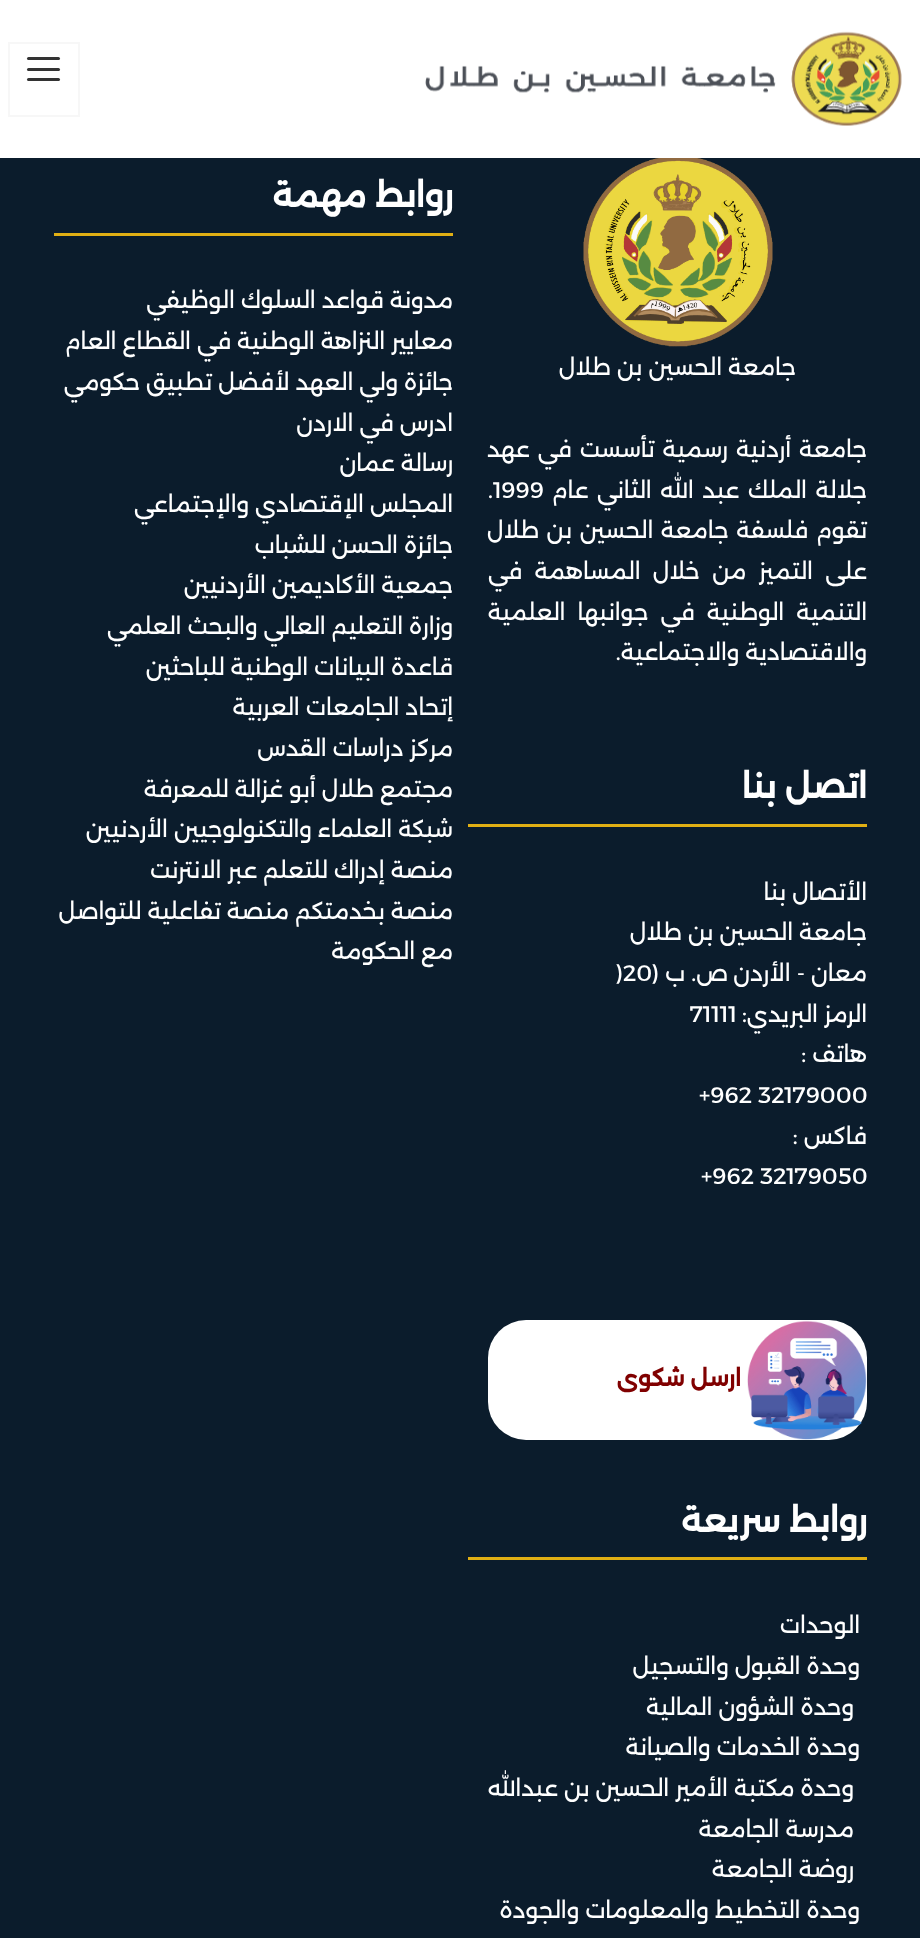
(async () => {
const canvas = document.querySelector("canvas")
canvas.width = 920
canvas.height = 1938
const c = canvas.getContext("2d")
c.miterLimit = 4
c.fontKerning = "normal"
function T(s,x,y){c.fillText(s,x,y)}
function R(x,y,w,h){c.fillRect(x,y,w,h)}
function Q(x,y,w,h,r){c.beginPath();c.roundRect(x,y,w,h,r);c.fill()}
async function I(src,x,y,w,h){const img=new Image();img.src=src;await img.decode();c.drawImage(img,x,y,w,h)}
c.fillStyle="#0b1c2c"
R(0,0,920,1938)
c.fillStyle="#fff"
R(0,0,920,158)
await I("1.png",425,31,477,95)
c.strokeStyle="#f7f7f7"
c.lineWidth=2
c.strokeRect(9,43,70,73)
c.fillStyle="#333"
Q(27,57,33,3,1.5)
Q(27,68,33,3,1.5)
Q(27,78,33,3,1.5)
await I("2.png",583,158,190,189)
c.direction="rtl"
c.font="22.5px Alexandria"
c.fillStyle="#fff"
T("جامعة الحسين بن طلال",796,375)
c.wordSpacing="2px"
T("جامعة أردنية رسمية تأسست في عهد",867,457)
c.wordSpacing="2.5px"
T("جلالة الملك عبد الله الثاني عام",867,498)
c.wordSpacing="0px"
c.direction="ltr"
T(".1999",488,498)
c.wordSpacing="1.5px"
c.direction="rtl"
T("تقوم فلسفة جامعة الحسين بن طلال",867,538)
c.wordSpacing="6.25px"
T("على التميز من خلال المساهمة في",867,579)
c.wordSpacing="6px"
T("التنمية الوطنية في جوانبها العلمية",867,620)
c.wordSpacing="0px"
T("والاقتصادية والاجتماعية.",867,660)
c.fillStyle="#e0af14"
R(468,824,399,3)
c.font="bold 33px Alexandria"
c.fillStyle="#fff"
T("اتصل بنا",867,798)
c.font="22.5px Alexandria"
T("الأتصال بنا",867,900)
T("جامعة الحسين بن طلال",867,940)
T("معان - الأردن",867,981)
T("ص. ب (",728,981)
c.direction="ltr"
T(")20",616,981)
c.direction="rtl"
T("الرمز البريدي:",867,1022)
c.direction="ltr"
T("71111",690,1022)
c.direction="rtl"
T("هاتف :",867,1062)
c.direction="ltr"
T("+962 32179000",699,1103)
c.direction="rtl"
T("فاكس :",867,1144)
c.direction="ltr"
T("+962 32179050",701,1184)
Q(488,1320,379,120,38)
await I("3.png",747,1320,120,120)
c.direction="rtl"
c.font="bold 22.5px Alexandria"
c.fillStyle="#800000"
T("ارسل شكوى",741,1386)
c.fillStyle="#e0af14"
R(54,233,399,3)
c.font="bold 33px Alexandria"
c.fillStyle="#fff"
T("روابط مهمة",453,207)
c.font="22.5px Alexandria"
T("مدونة قواعد السلوك الوظيفي",453,308)
T("معايير النزاهة الوطنية في القطاع العام",453,349)
T("جائزة ولي العهد لأفضل تطبيق حكومي",453,390)
T("ادرس في الاردن",453,431)
T("رسالة عمان",453,471)
T("المجلس الإقتصادي والإجتماعي",453,512)
T("جائزة الحسن للشباب",453,553)
T("جمعية الأكاديمين الأردنيين",453,593)
T("وزارة التعليم العالي والبحث العلمي",453,634)
T("قاعدة البيانات الوطنية للباحثين",453,675)
T("إتحاد الجامعات العربية",453,715)
T("مركز دراسات القدس",453,756)
T("مجتمع طلال أبو غزالة للمعرفة",453,797)
T("شبكة العلماء والتكنولوجيين الأردنيين",453,837)
T("منصة إدراك للتعلم عبر الانترنت",453,878)
T("منصة بخدمتكم منصة تفاعلية للتواصل",453,919)
T("مع الحكومة",453,959)
c.fillStyle="#e0af14"
R(468,1557,399,3)
c.font="bold 33px Alexandria"
c.fillStyle="#fff"
T("روابط سريعة",867,1532)
c.font="22.5px Alexandria"
T("الوحدات",860,1633)
T("وحدة القبول والتسجيل",860,1674)
T("وحدة الشؤون المالية",854,1715)
T("وحدة الخدمات والصيانة",860,1755)
T("وحدة مكتبة الأمير الحسين بن عبدالله",854,1796)
T("مدرسة الجامعة",854,1837)
T("روضة الجامعة",854,1877)
T("وحدة التخطيط والمعلومات والجودة",860,1918)
})()
